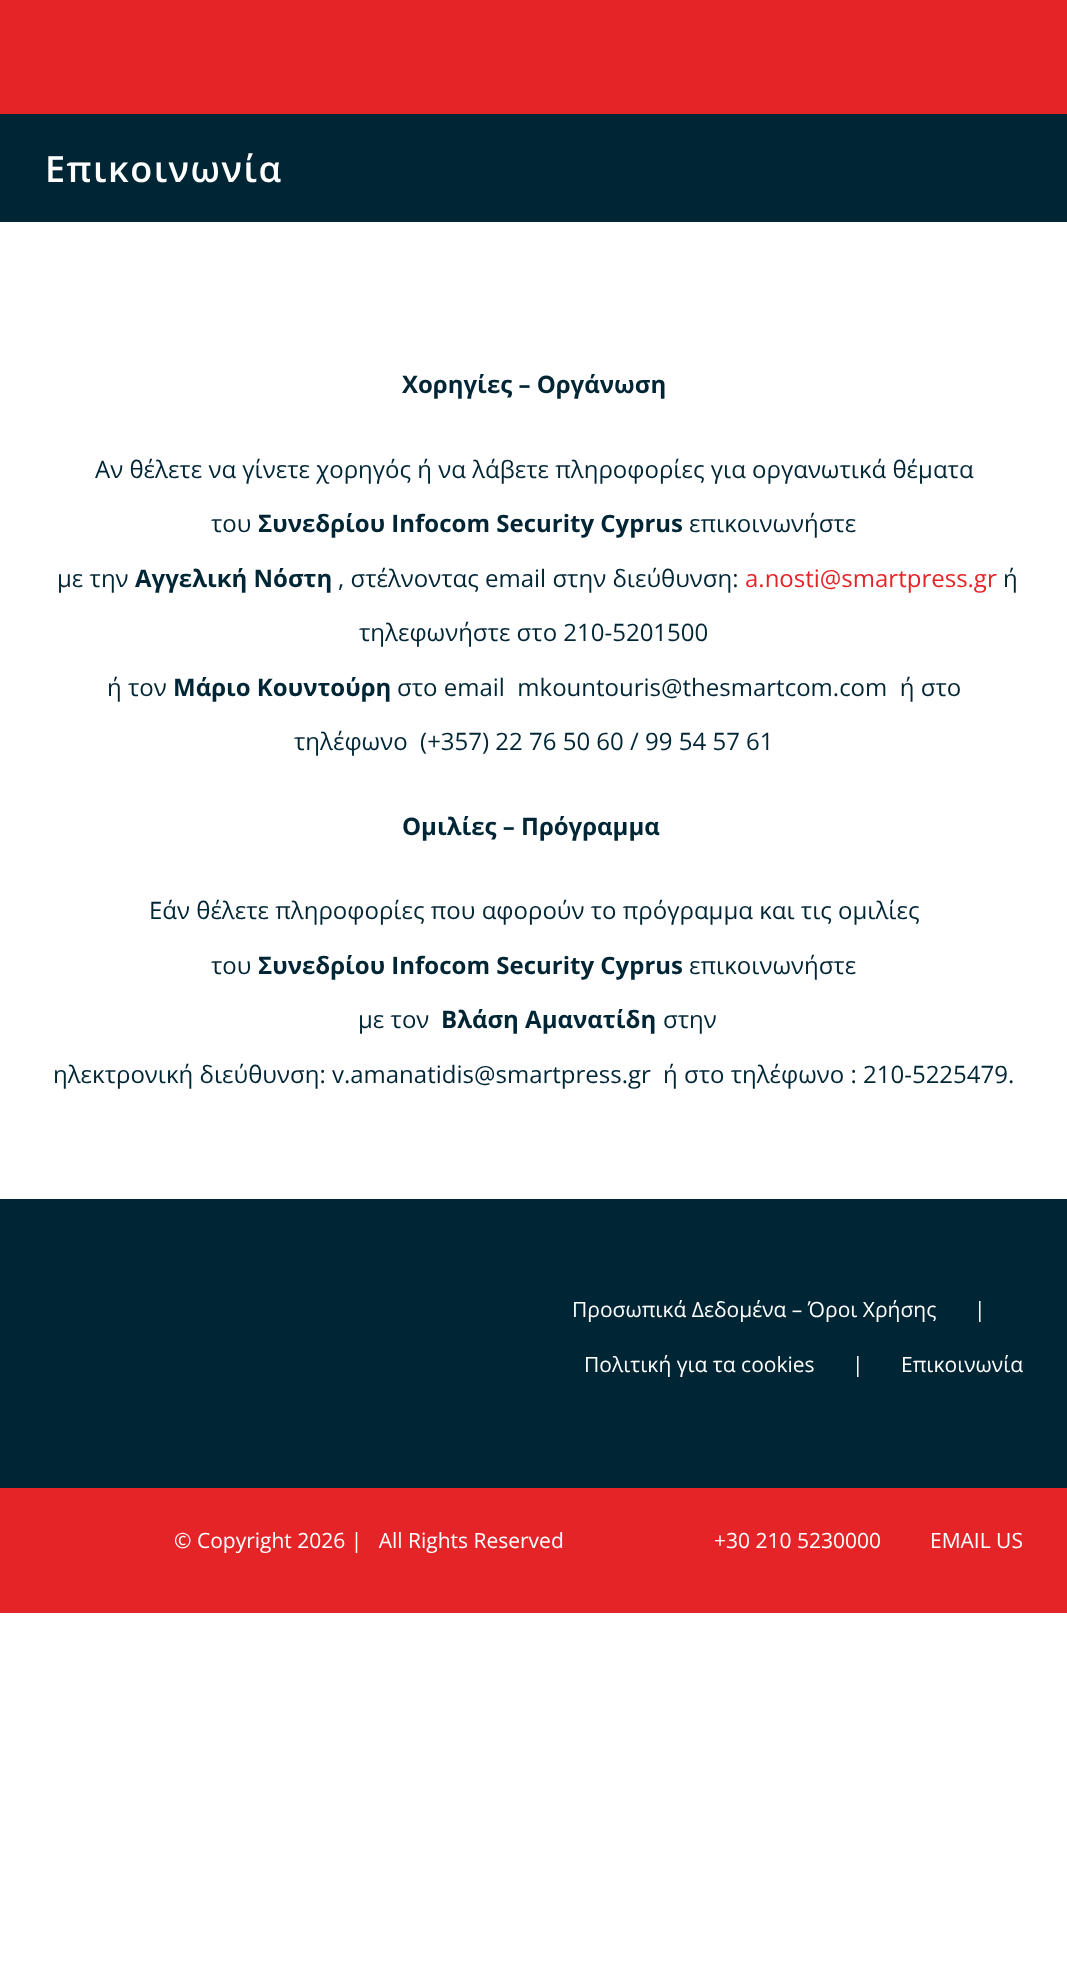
(async () => {
const canvas = document.querySelector("canvas")
canvas.width = 1067
canvas.height = 1988
const c = canvas.getContext("2d")
c.miterLimit = 4
c.fontKerning = "normal"
function T(s,x,y){c.fillText(s,x,y)}
function R(x,y,w,h){c.fillRect(x,y,w,h)}
c.fillStyle="#fff"
R(0,0,1067,1988)
c.fillStyle="#e52428"
R(0,0,1067,114)
c.fillStyle="#002636"
R(0,114,1067,108)
c.letterSpacing="1.5px"
c.font="600 36px Open Sans"
c.fillStyle="#fff"
T("Επικοινωνία",45,182)
c.letterSpacing="0px"
c.font="bold 24px Open Sans"
c.fillStyle="#002636"
T("Χορηγίες – Οργάνωση",402,393)
c.font="24px Open Sans"
T("Αν θέλετε να γίνετε χορηγός ή να λάβετε πληροφορίες για οργανωτικά θέματα",95,478)
T("του",211,532)
c.font="bold 24px Open Sans"
T("Συνεδρίου Infocom Security Cyprus",258,532)
c.font="24px Open Sans"
T("επικοινωνήστε",689,532)
T("με την",57,587)
c.font="bold 24px Open Sans"
T("Αγγελική Νόστη",135,587)
c.font="24px Open Sans"
T(", στέλνοντας email στην διεύθυνση:",338,587)
c.fillStyle="#e52428"
T("a.nosti@smartpress.gr",745,587)
c.fillStyle="#002636"
T("ή",1003,587)
T("τηλεφωνήστε στο 210-5201500",359,641)
T("ή τον",107,696)
c.font="bold 24px Open Sans"
T("Μάριο Κουντούρη",173,696)
c.font="24px Open Sans"
T("στο email  mkountouris@thesmartcom.com  ή στο",397,696)
T("τηλέφωνο  (+357) 22 76 50 60 / 99 54 57 61",294,750)
c.font="bold 24px Open Sans"
T("Ομιλίες – Πρόγραμμα",402,835)
c.font="24px Open Sans"
T("Εάν θέλετε πληροφορίες που αφορούν το πρόγραμμα και τις ομιλίες",149,919)
T("του",211,974)
c.font="bold 24px Open Sans"
T("Συνεδρίου Infocom Security Cyprus",258,974)
c.font="24px Open Sans"
T("επικοινωνήστε",689,974)
T("με τον",358,1028)
c.font="bold 24px Open Sans"
T("Βλάση Αμανατίδη",441,1028)
c.font="24px Open Sans"
T("στην",663,1028)
T("ηλεκτρονική διεύθυνση: v.amanatidis@smartpress.gr",53,1083)
T("ή στο τηλέφωνο : 210-5225479.",663,1083)
R(0,1199,1067,289)
c.font="21px Open Sans"
c.fillStyle="#fff"
T("Προσωπικά Δεδομένα – Όροι Χρήσης",572,1317)
T("|",974,1317)
T("Πολιτική για τα cookies",584,1372)
T("|",852,1372)
T("Επικοινωνία",901,1372)
c.fillStyle="#e52428"
R(0,1488,1067,125)
c.fillStyle="#fff"
T("© Copyright 2026 |   All Rights Reserved",174,1548)
T("+30 210 5230000",714,1548)
T("EMAIL US",930,1548)
})()
